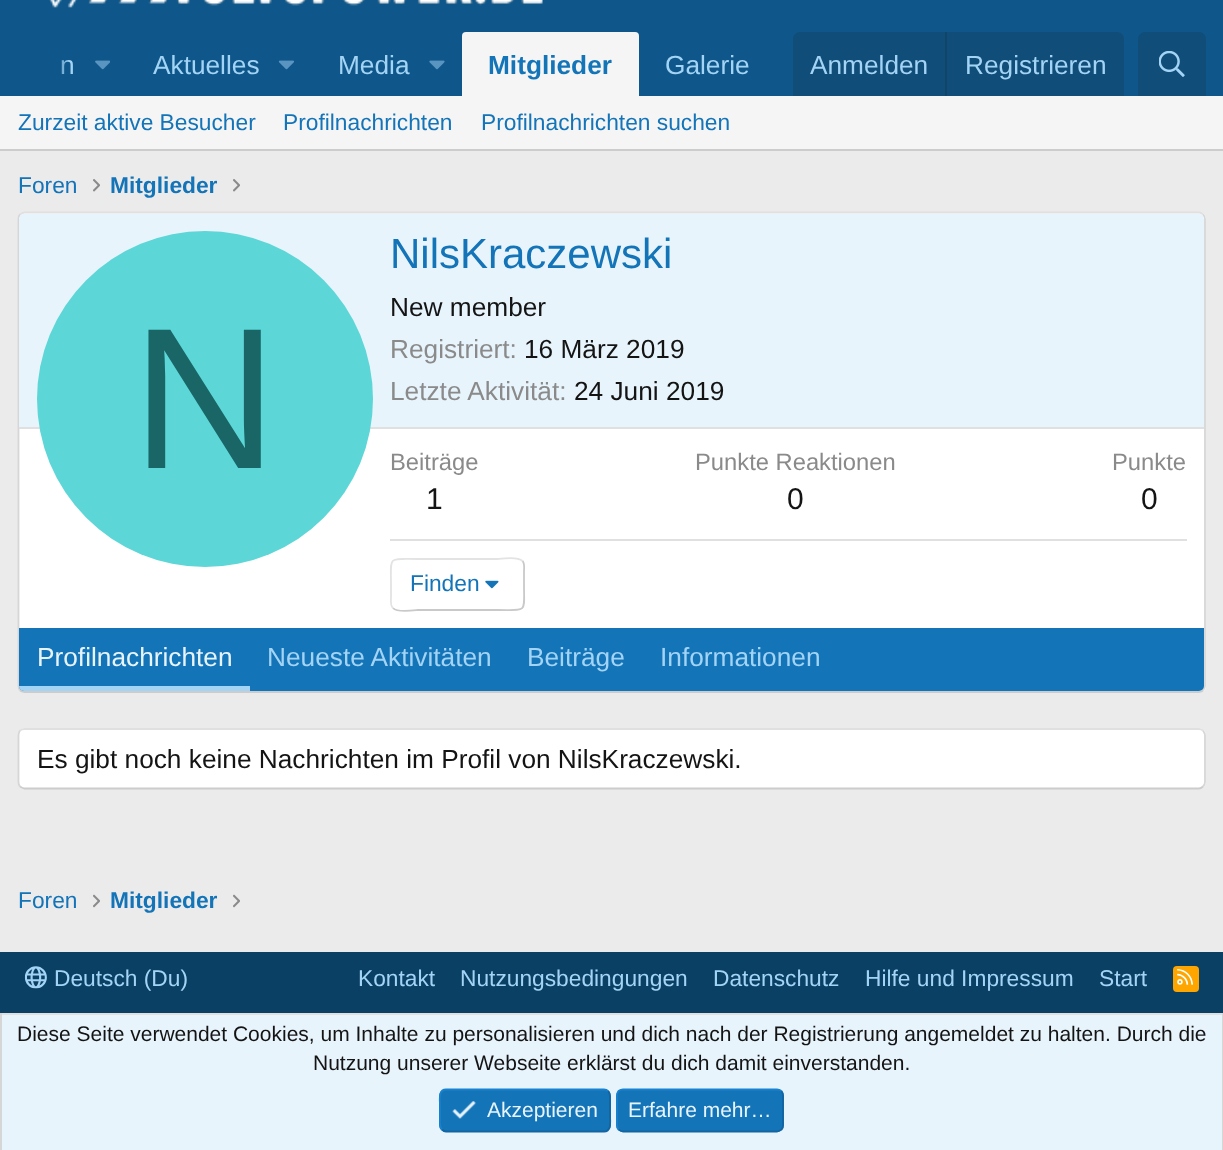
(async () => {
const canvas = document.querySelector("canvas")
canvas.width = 1223
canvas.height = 1150
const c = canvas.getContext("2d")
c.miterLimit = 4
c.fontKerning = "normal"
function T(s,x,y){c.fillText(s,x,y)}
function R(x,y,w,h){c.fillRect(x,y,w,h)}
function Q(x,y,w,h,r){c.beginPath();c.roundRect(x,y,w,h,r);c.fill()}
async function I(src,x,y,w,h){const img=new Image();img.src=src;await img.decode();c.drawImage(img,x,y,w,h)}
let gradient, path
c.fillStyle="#ebebeb"
R(0,0,1223,1150)
c.fillStyle="#0f578a"
R(0,0,1223,32)
await I("1.png",49,0,494,8)
R(46,32,1177,64)
c.font="26.25px Liberation Sans"
c.fillStyle="#a3d4f5"
T("n",60,74)
gradient = c.createLinearGradient(0,64,70,64)
gradient.addColorStop(.66,"#0f578a")
gradient.addColorStop(1,"#0f578a00")
c.fillStyle = gradient
R(0,32,69,64)
await I("2.png",95,60,15,10)
c.fillStyle="#a3d4f5"
T("Aktuelles",153,74)
await I("3.png",278,60,16,10)
T("Media",338,74)
await I("4.png",429,60,16,10)
c.fillStyle="#f5f5f5"
c.beginPath()
c.roundRect(462,32,177,64,[4,4,0,0])
c.fill()
c.font="bold 26.25px Liberation Sans"
c.fillStyle="#1474b8"
T("Mitglieder",488,74)
c.font="26.25px Liberation Sans"
c.fillStyle="#a3d4f5"
T("Galerie",665,74)
c.fillStyle="#104d78"
c.beginPath()
c.roundRect(793,32,331,64,[7,7,0,0])
c.fill()
c.fillStyle="#a3d4f5"
T("Anmelden",810,74)
c.fillStyle="#114469"
R(945,32,2,64)
c.fillStyle="#a3d4f5"
T("Registrieren",965,74)
c.fillStyle="#104d78"
c.beginPath()
c.roundRect(1138,32,68,64,[7,7,0,0])
c.fill()
await I("5.png",1159,51,26,26)
c.fillStyle="#f5f5f5"
R(0,96,1223,53)
c.fillStyle="#ccc"
R(0,149,1223,2)
c.font="22.75px Liberation Sans"
c.fillStyle="#1474b8"
T("Zurzeit aktive Besucher",18,130)
T("Profilnachrichten",283,130)
T("Profilnachrichten suchen",481,130)
T("Foren",18,193)
await I("6.png",93,179,7,13)
c.font="bold 22.75px Liberation Sans"
T("Mitglieder",110,193)
await I("6.png",233,179,7,13)
c.fillStyle="#fff"
Q(18,212,1188,481,7)
path = new Path2D("M20 214.5c1.5-1 3-2 4.5-2h1174.5c1.5 0 3 1 4 2")
c.strokeStyle="#e0e0e0"
c.lineWidth=1.8
c.stroke(path)
path = new Path2D("M1203 214.5c1 1 2 2.5 2 4.5v467c0 1.5-1 3-2 4.5")
c.strokeStyle="#d6d6d6"
c.stroke(path)
path = new Path2D("M1203 690.5c-1 1-2.5 1.5-4 1.5h-1174.5c-1.5 0-3-.5-4.5-1.5")
c.strokeStyle="#ccc"
c.stroke(path)
path = new Path2D("M20 690.5c-1-1.5-1.5-3-1.5-4.5v-467c0-2 .5-3.5 1.5-4.5")
c.strokeStyle="#d6d6d6"
c.stroke(path)
c.fillStyle="#e8f4fc"
c.beginPath()
c.roundRect(19,214,1185,215,[5,5,0,0])
c.fill()
c.fillStyle="#e0e0e0"
R(19,427,1185,2)
c.fillStyle="#5cd6d6"
c.beginPath()
c.arc(205,399,168,0,7)
c.fill()
c.font="201px Liberation Sans"
c.fillStyle="#1a6666"
T("N",132,468)
c.font="42px Liberation Sans"
c.fillStyle="#1474b8"
T("NilsKraczewski",390,268)
c.font="26.25px Liberation Sans"
c.fillStyle="#141414"
T("New member",390,316)
c.fillStyle="#8a8a8a"
T("Registriert:",390,358)
c.fillStyle="#141414"
T("16 März 2019",524,358)
c.fillStyle="#8a8a8a"
T("Letzte Aktivität:",390,400)
c.fillStyle="#141414"
T("24 Juni 2019",574,400)
c.font="23.75px Liberation Sans"
c.fillStyle="#8a8a8a"
T("Beiträge",390,470)
c.font="30px Liberation Sans"
c.fillStyle="#141414"
T("1",426,509)
c.font="23.75px Liberation Sans"
c.fillStyle="#8a8a8a"
T("Punkte Reaktionen",695,470)
c.font="30px Liberation Sans"
c.fillStyle="#141414"
T("0",787,509)
c.font="23.75px Liberation Sans"
c.fillStyle="#8a8a8a"
T("Punkte",1112,470)
c.font="30px Liberation Sans"
c.fillStyle="#141414"
T("0",1141,509)
c.fillStyle="#e0e0e0"
R(390,539,797,2)
path = new Path2D("M522.5 561c2.5 2.5 1.5 7.5 1.5 10.5v13c0 29 4 25.5-26 25.5h-80.5c-1 0-20 3-24.5-2")
c.strokeStyle="#c9c9c9"
c.stroke(path)
path = new Path2D("M393 608c-3-2.5-2-7.5-2-10.5v-13c0-29-4-25.5 26.5-25.5h80.5c.5 0 19.5-3 24.5 2")
c.strokeStyle="#e3e3e3"
c.stroke(path)
c.font="22.75px Liberation Sans"
c.fillStyle="#1474b8"
T("Finden",410,591)
await I("7.png",485,580,14,9)
c.beginPath()
c.roundRect(19,628,1185,63,[0,0,5,5])
c.fill()
c.fillStyle="#a3d4f5"
c.beginPath()
c.roundRect(19,686,231,5,[0,0,0,5])
c.fill()
c.font="26.25px Liberation Sans"
c.fillStyle="#e8f4fc"
T("Profilnachrichten",37,666)
c.fillStyle="#a3d4f5"
T("Neueste Aktivitäten",267,666)
T("Beiträge",527,666)
T("Informationen",660,666)
c.fillStyle="#fff"
Q(18,728,1188,61,7)
path = new Path2D("M20 730.5c1.5-1 3-1.5 4.5-1.5h1174.5c1.5 0 3 .5 4 1.5")
c.strokeStyle="#e0e0e0"
c.stroke(path)
path = new Path2D("M1203 730.5c1 1.5 2 3 2 4.5v47c0 2-1 3.5-2 4.5")
c.strokeStyle="#d6d6d6"
c.stroke(path)
path = new Path2D("M1203 786.5c-1 1-2.5 2-4 2h-1174.5c-1.5 0-3-1-4.5-2")
c.strokeStyle="#ccc"
c.stroke(path)
path = new Path2D("M20 786.5c-1-1-1.5-2.5-1.5-4.5v-47c0-1.5 .5-3 1.5-4.5")
c.strokeStyle="#d6d6d6"
c.stroke(path)
c.fillStyle="#141414"
T("Es gibt noch keine Nachrichten im Profil von NilsKraczewski.",37,768)
c.font="22.75px Liberation Sans"
c.fillStyle="#1474b8"
T("Foren",18,908)
await I("8.png",93,894,7,14)
c.font="bold 22.75px Liberation Sans"
T("Mitglieder",110,908)
await I("8.png",233,894,7,14)
c.fillStyle="#0b4065"
R(0,952,1223,61)
await I("9.png",24,966,23,23)
c.font="22.75px Liberation Sans"
c.fillStyle="#a3d4f5"
T("Deutsch (Du)",54,986)
T("Kontakt",358,986)
T("Nutzungsbedingungen",460,986)
T("Datenschutz",713,986)
T("Hilfe und Impressum",865,986)
T("Start",1099,986)
c.fillStyle="#ffa500"
Q(1173,966,26,26,4)
await I("10.png",1177,969,16,16)
c.fillStyle="#e8f4fc"
R(2,1015,1220,135)
c.fillStyle="#e0e0e0"
R(0,1013,1223,2)
c.fillStyle="#d6d6d6"
R(1222,1013,1,137)
R(0,1013,2,137)
c.font="21px Liberation Sans"
c.fillStyle="#141414"
T("Diese Seite verwendet Cookies, um Inhalte zu personalisieren und dich nach der Registrierung angemeldet zu halten. Durch die",17,1041)
T("Nutzung unserer Webseite erklärst du dich damit einverstanden.",313,1070)
c.fillStyle="#1474b8"
Q(439,1089,172,43,7)
path = new Path2D("M608 1091c2.5 2.5 2 6.5 2 9.5v15c0 4.5 2 16-6 16h-158c-1.5 0-3-1-4-2")
c.strokeStyle="#1265a1"
c.stroke(path)
path = new Path2D("M442 1129.5c-2.5-2.5-2-6-2-9v-15c0-5-2-16 6-16h158c1.5 0 3 .5 4 1.5")
c.strokeStyle="#1782cf"
c.stroke(path)
await I("11.png",452,1101,24,18)
c.fillStyle="#e8f4fc"
T("Akzeptieren",487,1117)
c.fillStyle="#1474b8"
Q(616,1089,168,43,7)
path = new Path2D("M781.5 1091c1 1.5 1.5 3 1.5 4.5v29.5c0 2-.5 3.5-1.5 4.5c-1.5 1-3 2-4.5 2h-154c-1.5 0-3-1-4.5-2")
c.strokeStyle="#1265a1"
c.stroke(path)
path = new Path2D("M618.5 1129.5c-1-1-1.5-2.5-1.5-4.5v-29.5c0-1.5 .5-3 1.5-4.5c1.5-1 3-1.5 4.5-1.5h154c1.5 0 3 .5 4.5 1.5")
c.strokeStyle="#1782cf"
c.stroke(path)
c.fillStyle="#e8f4fc"
T("Erfahre mehr…",628,1117)
})()
